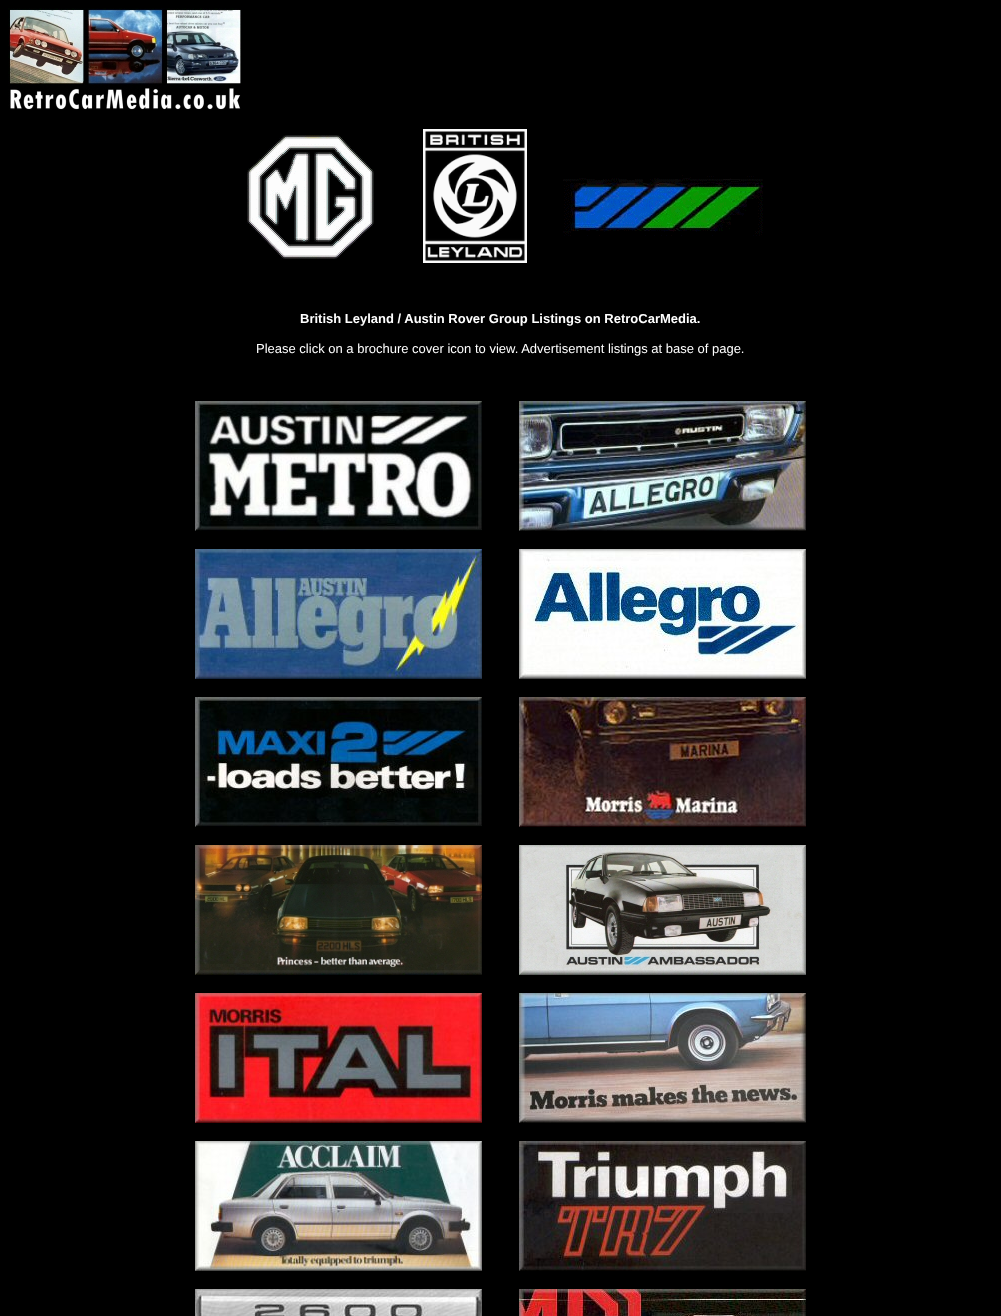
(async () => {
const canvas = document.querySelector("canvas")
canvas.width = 1001
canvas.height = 1316
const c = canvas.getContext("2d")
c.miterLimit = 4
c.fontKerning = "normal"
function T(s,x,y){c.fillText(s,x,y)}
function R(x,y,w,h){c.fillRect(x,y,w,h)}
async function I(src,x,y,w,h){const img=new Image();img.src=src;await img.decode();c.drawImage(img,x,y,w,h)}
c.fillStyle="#000"
R(0,0,1001,1316)
await I("1.png",8,8,233,102)
await I("2.png",247,135,127,124)
await I("3.png",423,129,104,134)
await I("4.png",563,175,201,61)
c.font="bold 13px Liberation Sans"
c.fillStyle="#fff"
T("British Leyland / Austin Rover Group Listings on RetroCarMedia.",300,323)
c.font="13px Liberation Sans"
T("Please click on a brochure cover icon to view. Advertisement listings at base of page.",256,353)
await I("5.png",195,401,287,130)
await I("6.png",519,401,287,130)
await I("7.png",195,549,287,130)
await I("8.png",519,549,287,130)
await I("9.png",195,697,287,130)
await I("10.png",519,697,287,130)
await I("11.png",195,845,287,130)
await I("12.png",519,845,287,130)
await I("13.png",195,993,287,130)
await I("14.png",519,993,287,130)
await I("15.png",195,1141,287,130)
await I("16.png",519,1141,287,130)
await I("17.png",195,1289,287,27)
await I("18.png",519,1289,287,27)
})()
